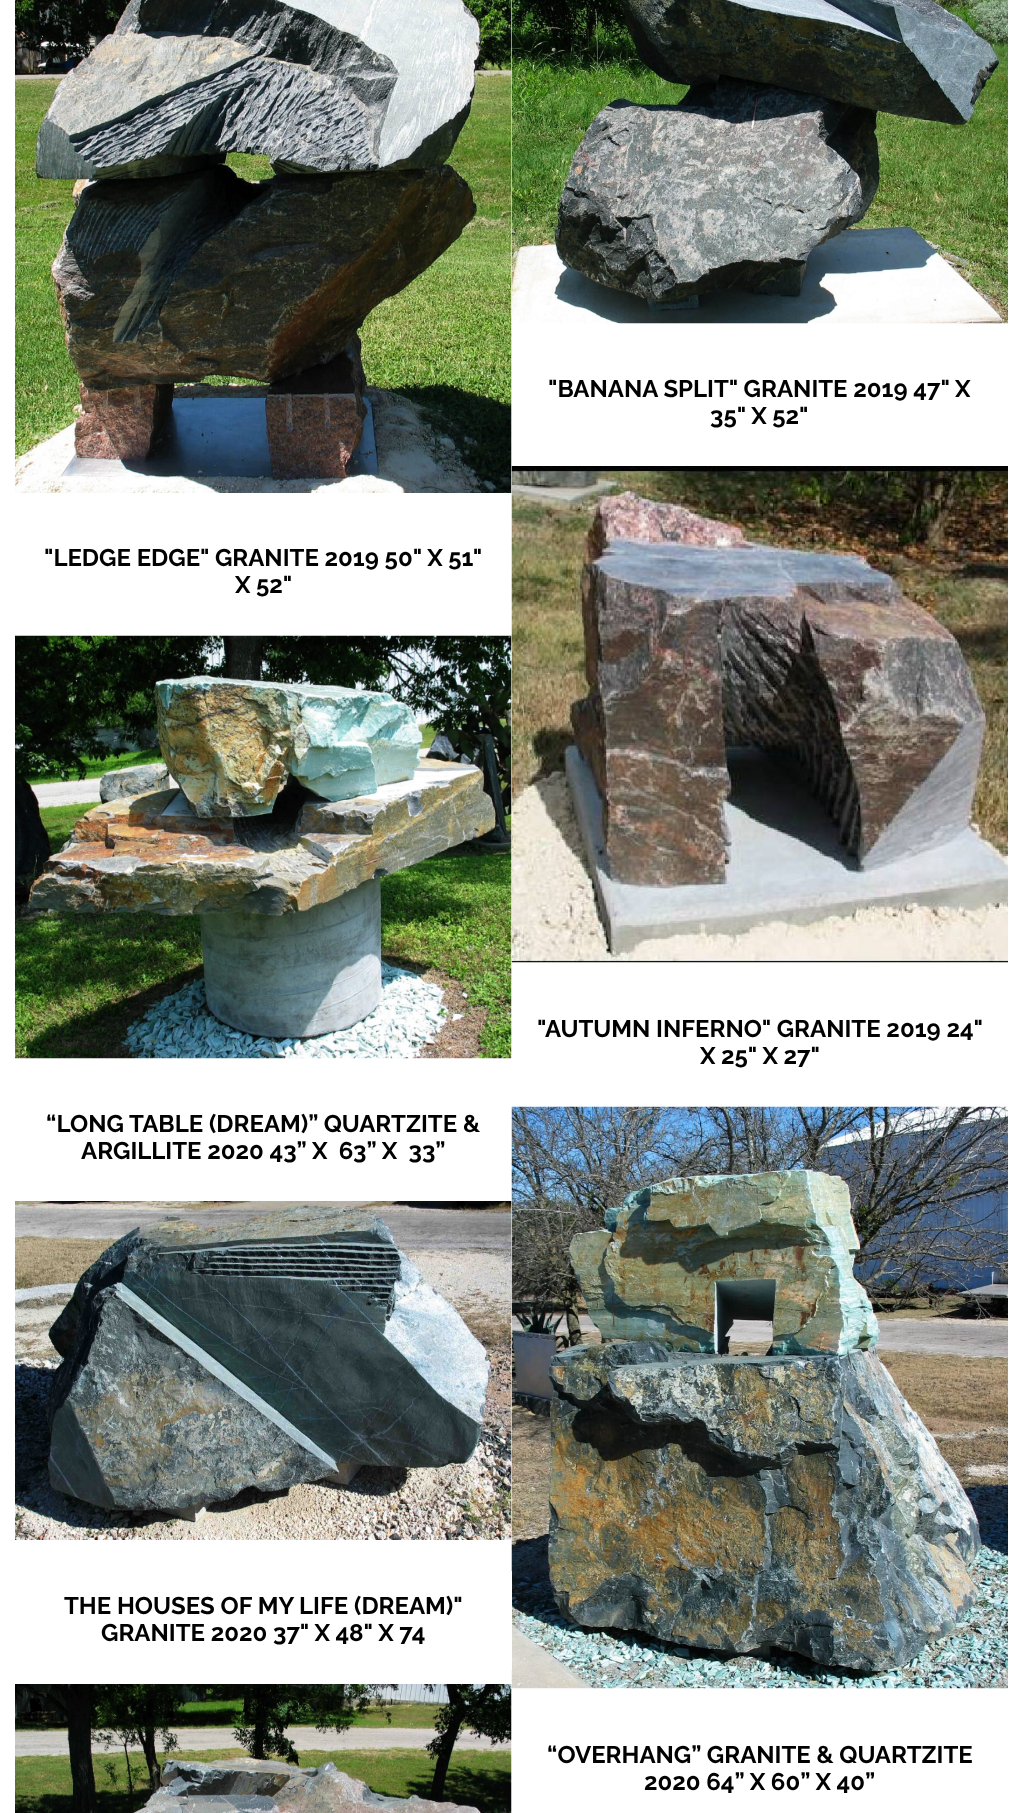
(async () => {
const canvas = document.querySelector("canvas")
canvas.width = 1022
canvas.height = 1813
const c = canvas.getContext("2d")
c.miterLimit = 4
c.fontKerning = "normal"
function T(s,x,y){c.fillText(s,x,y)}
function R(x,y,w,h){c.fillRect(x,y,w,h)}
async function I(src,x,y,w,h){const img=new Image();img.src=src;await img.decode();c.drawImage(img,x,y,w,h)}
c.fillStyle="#fff"
R(0,0,1022,1813)
await I("2.png",15,0,497,493)
await I("1.png",511,0,497,324)
c.font="bold 24px Raleway"
c.fillStyle="#000"
T("\"BANANA SPLIT\" GRANITE 2019 47\" X",548,397)
T("35\" X 52\"",710,424)
T("\"LEDGE EDGE\" GRANITE 2019 50\" X 51\"",44,566)
T("X 52\"",235,593)
await I("3.png",511,466,497,497)
T("\"AUTUMN INFERNO\" GRANITE 2019 24\"",537,1037)
T("X 25\" X 27\"",700,1064)
await I("4.png",15,635,497,424)
T("“LONG TABLE (DREAM)” QUARTZITE &",46,1132)
T("ARGILLITE 2020 43” X  63” X  33”",81,1159)
await I("7.png",511,1106,497,583)
await I("5.png",15,1201,497,339)
c.fillStyle="#fff"
R(511,1571,1,99)
c.fillStyle="#000"
T("THE HOUSES OF MY LIFE (DREAM)\"",64,1614)
T("GRANITE 2020 37\" X 48\" X 74",101,1641)
await I("6.png",15,1684,497,129)
T("“OVERHANG” GRANITE & QUARTZITE",547,1763)
T("2020 64” X 60” X 40”",644,1790)
})()
